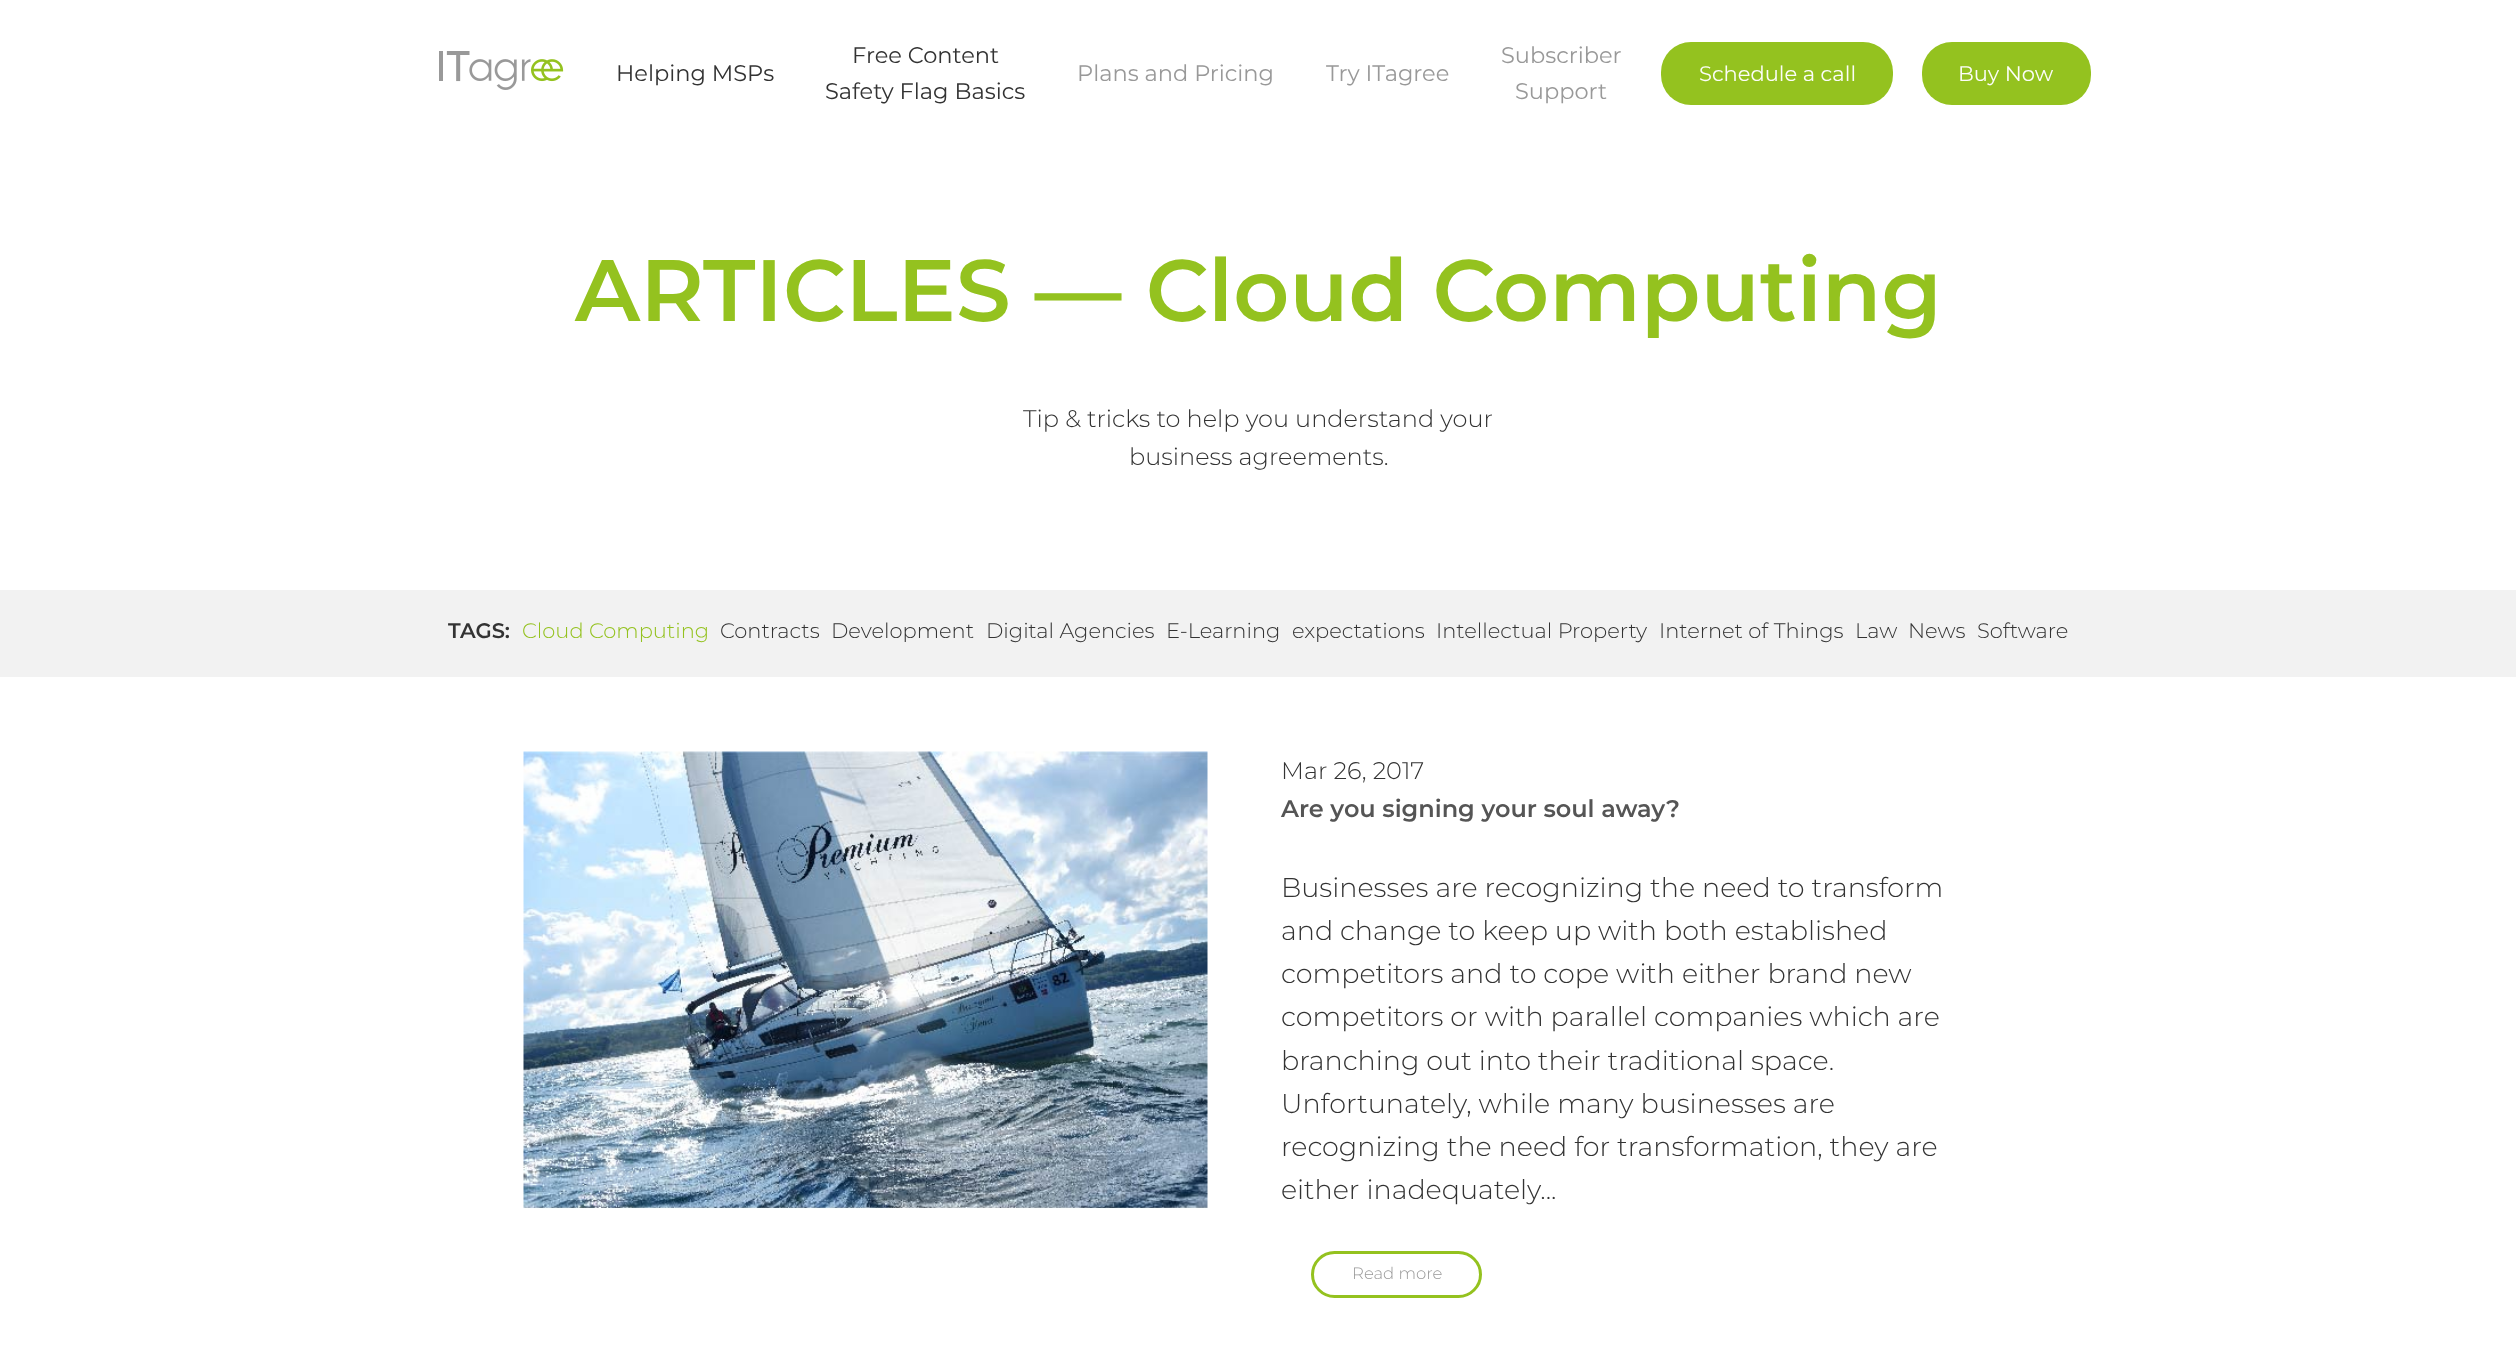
(async () => {
const canvas = document.querySelector("canvas")
canvas.width = 2516
canvas.height = 1353
const c = canvas.getContext("2d")
c.miterLimit = 4
c.fontKerning = "normal"
function T(s,x,y){c.fillText(s,x,y)}
function R(x,y,w,h){c.fillRect(x,y,w,h)}
function Q(x,y,w,h,r){c.beginPath();c.roundRect(x,y,w,h,r);c.fill()}
async function I(src,x,y,w,h){const img=new Image();img.src=src;await img.decode();c.drawImage(img,x,y,w,h)}
c.fillStyle="#fff"
R(0,0,2516,1353)
await I("1.png",439,51,125,39)
c.font="22.5px Montserrat"
c.fillStyle="#333"
T("Helping MSPs",616,81)
T("Free Content",852,63)
T("Safety Flag Basics",825,99)
c.fillStyle="#999"
T("Plans and Pricing",1077,81)
T("Try ITagree",1326,81)
T("Subscriber",1501,63)
T("Support",1515,99)
c.fillStyle="#94c21f"
Q(1661,42,232,63,30)
c.font="21px Montserrat"
c.fillStyle="#fcfdf9"
T("Schedule a call",1699,81)
c.fillStyle="#94c21f"
Q(1922,42,169,63,30)
c.fillStyle="#fcfdf9"
T("Buy Now",1958,81)
c.font="600 87px Montserrat"
c.fillStyle="#94c21f"
T("ARTICLES — Cloud Computing",575,321)
c.font="300 24px Montserrat"
c.fillStyle="#333"
T("Tip & tricks to help you understand your",1023,427)
T("business agreements.",1129,465)
c.fillStyle="#f2f2f2"
R(0,590,2516,87)
c.font="600 21px Montserrat"
c.fillStyle="#333"
T("TAGS:",448,638)
c.font="300 21px Montserrat"
c.fillStyle="#94c21f"
T("Cloud Computing",522,638)
c.fillStyle="#333"
T("Contracts",720,638)
T("Development",831,638)
T("Digital Agencies",986,638)
T("E-Learning",1166,638)
T("expectations",1292,638)
T("Intellectual Property",1436,638)
T("Internet of Things",1659,638)
T("Law",1855,638)
T("News",1908,638)
T("Software",1977,638)
await I("2.png",523,751,685,458)
c.font="300 24px Montserrat"
T("Mar 26, 2017",1281,779)
c.font="600 24px Montserrat"
c.fillStyle="#555"
T("Are you signing your soul away?",1281,817)
c.font="300 27px Montserrat"
c.fillStyle="#333"
T("Businesses are recognizing the need to transform",1281,897)
T("and change to keep up with both established",1281,940)
T("competitors and to cope with either brand new",1281,983)
T("competitors or with parallel companies which are",1281,1026)
T("branching out into their traditional space.",1281,1070)
T("Unfortunately, while many businesses are",1281,1113)
T("recognizing the need for transformation, they are",1281,1156)
T("either inadequately...",1281,1199)
c.beginPath()
c.roundRect(1312.5,1252.5,168,44,22)
c.strokeStyle="#94c21f"
c.lineWidth=3
c.stroke()
c.font="300 16.5px Montserrat"
c.fillStyle="#999"
T("Read more",1352,1279)
})()
